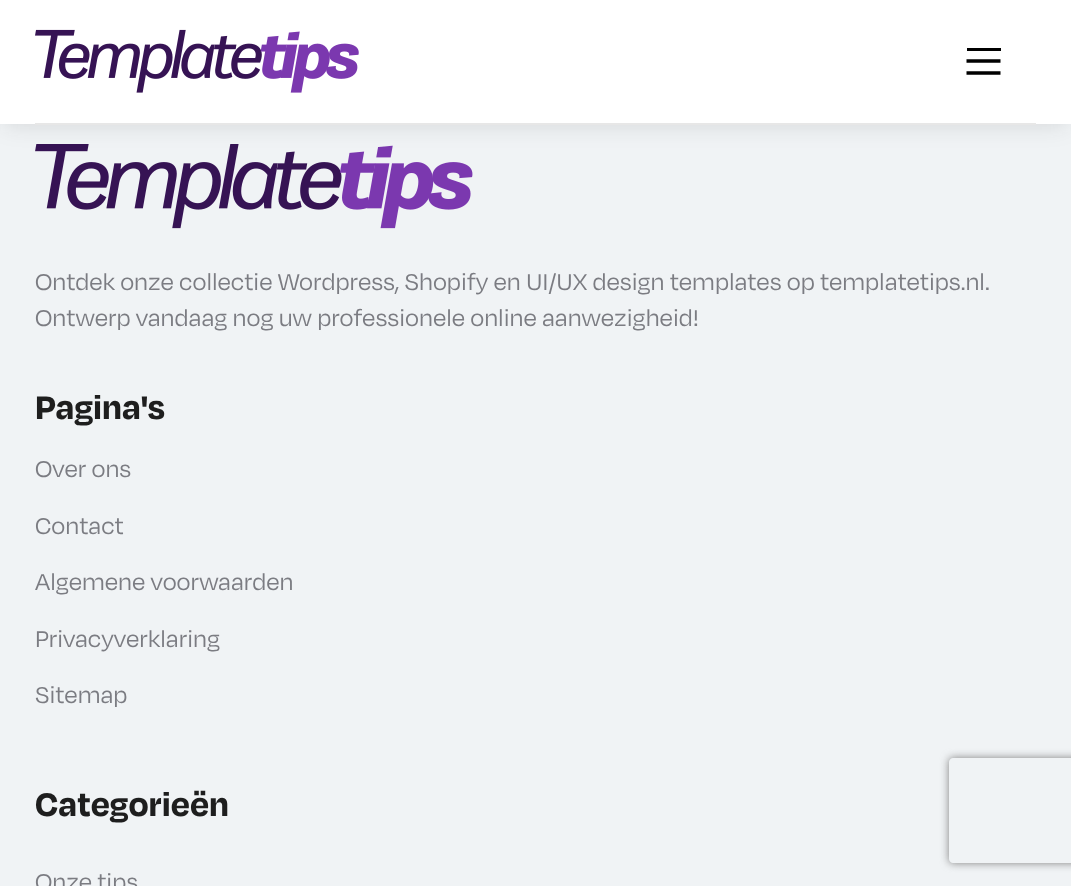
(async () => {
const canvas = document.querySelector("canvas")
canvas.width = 1071
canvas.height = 886
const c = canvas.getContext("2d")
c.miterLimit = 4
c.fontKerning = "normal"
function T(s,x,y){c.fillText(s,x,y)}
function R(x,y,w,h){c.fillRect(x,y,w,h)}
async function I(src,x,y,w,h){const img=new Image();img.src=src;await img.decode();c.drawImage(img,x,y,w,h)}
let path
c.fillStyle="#f0f3f5"
R(0,0,1071,886)
await I("2.png",35,144,438,85)
c.fillStyle="#19191924"
c.filter="blur(11.5px)"
c.beginPath()
c.rect(5,11,1061,113)
c.fill()
c.filter="none"
c.fillStyle="#fff"
R(0,0,1071,124)
c.fillStyle="#e7e7e7"
R(35,123,1001,2)
await I("1.png",35,29,324,64)
c.fillStyle="#000"
R(967,48,34,3)
path = new Path2D("M966.5 61h34m-34 12h34")
c.strokeStyle="#000"
c.lineWidth=3.4
c.stroke(path)
c.font="26.25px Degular"
c.fillStyle="#7b7c82"
T("Ontdek onze collectie Wordpress, Shopify en UI/UX design templates op templatetips.nl.",35,290)
T("Ontwerp vandaag nog uw professionele online aanwezigheid!",35,326)
c.font="bold 37.5px Degular"
c.fillStyle="#1e1e1e"
T("Pagina's",35,419)
c.font="26.25px Degular"
c.fillStyle="#7b7c82"
T("Over ons",35,477)
T("Contact",35,534)
T("Algemene voorwaarden",35,590)
T("Privacyverklaring",35,647)
T("Sitemap",35,703)
c.font="bold 37.5px Degular"
c.fillStyle="#1e1e1e"
T("Categorieën",35,816)
c.font="26.25px Degular"
c.fillStyle="#7b7c82"
T("Onze tips",35,890)
c.save()
path = new Path2D("M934 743h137v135h-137zm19 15h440c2 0 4 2 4 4v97c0 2-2 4-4 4h-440c-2 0-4-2-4-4v-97c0-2 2-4 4-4z")
c.clip(path,"evenodd")
c.fillStyle="#808080"
c.filter="blur(4.5px)"
c.beginPath()
c.roundRect(949,758,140,105,4)
c.fill()
c.filter="none"
c.restore()
})()
